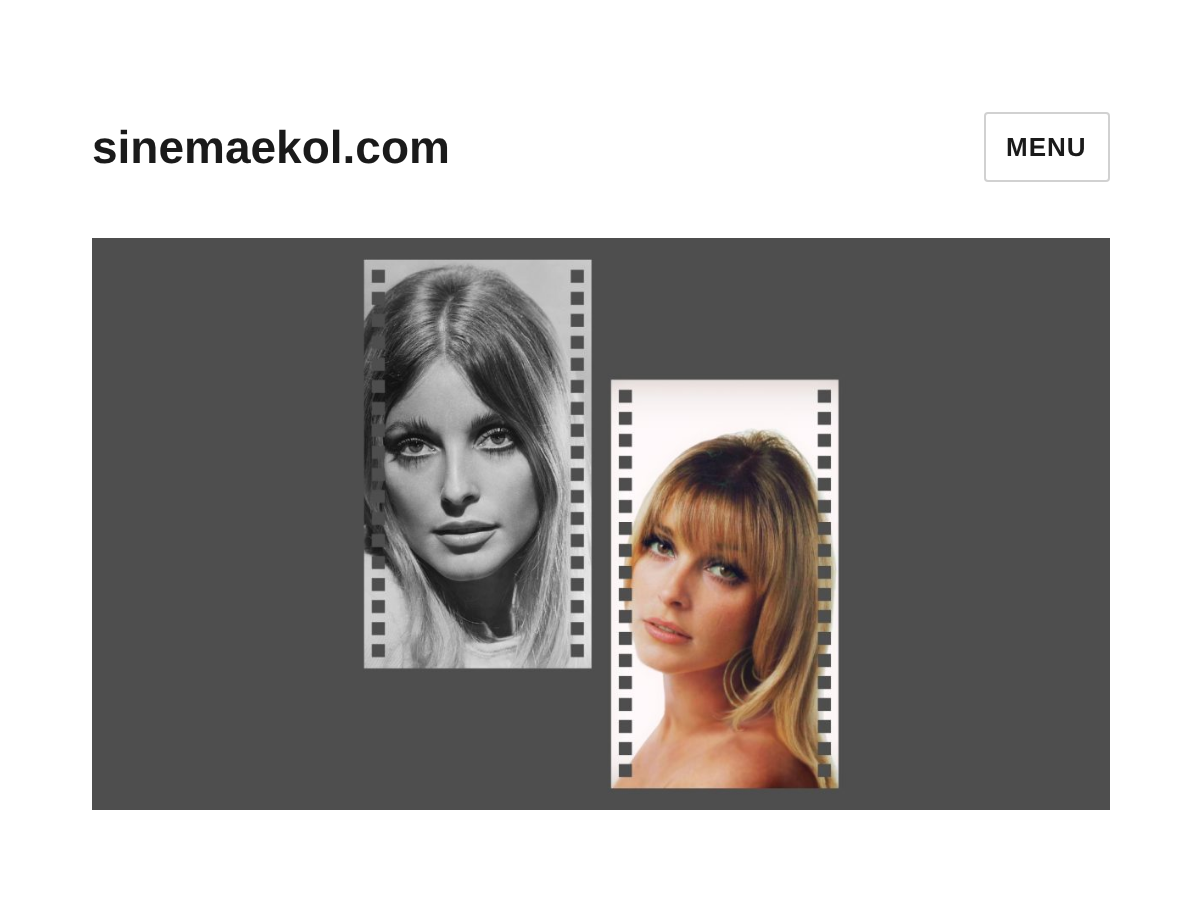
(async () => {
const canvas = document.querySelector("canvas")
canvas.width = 1201
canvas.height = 911
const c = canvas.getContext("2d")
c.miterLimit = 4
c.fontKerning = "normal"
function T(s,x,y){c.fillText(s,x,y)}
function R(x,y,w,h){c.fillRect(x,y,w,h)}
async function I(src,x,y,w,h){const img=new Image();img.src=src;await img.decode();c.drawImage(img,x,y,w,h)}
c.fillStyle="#fff"
R(0,0,1201,911)
c.font="bold 46px Liberation Sans"
c.fillStyle="#1a1a1a"
T("sinemaekol.com",92,163)
c.beginPath()
c.roundRect(985,113,124,68,3)
c.strokeStyle="#d1d1d1"
c.lineWidth=2
c.stroke()
c.letterSpacing="1px"
c.font="bold 26px Liberation Sans"
T("MENU",1006,156)
await I("1.png",92,238,1018,572)
})()
